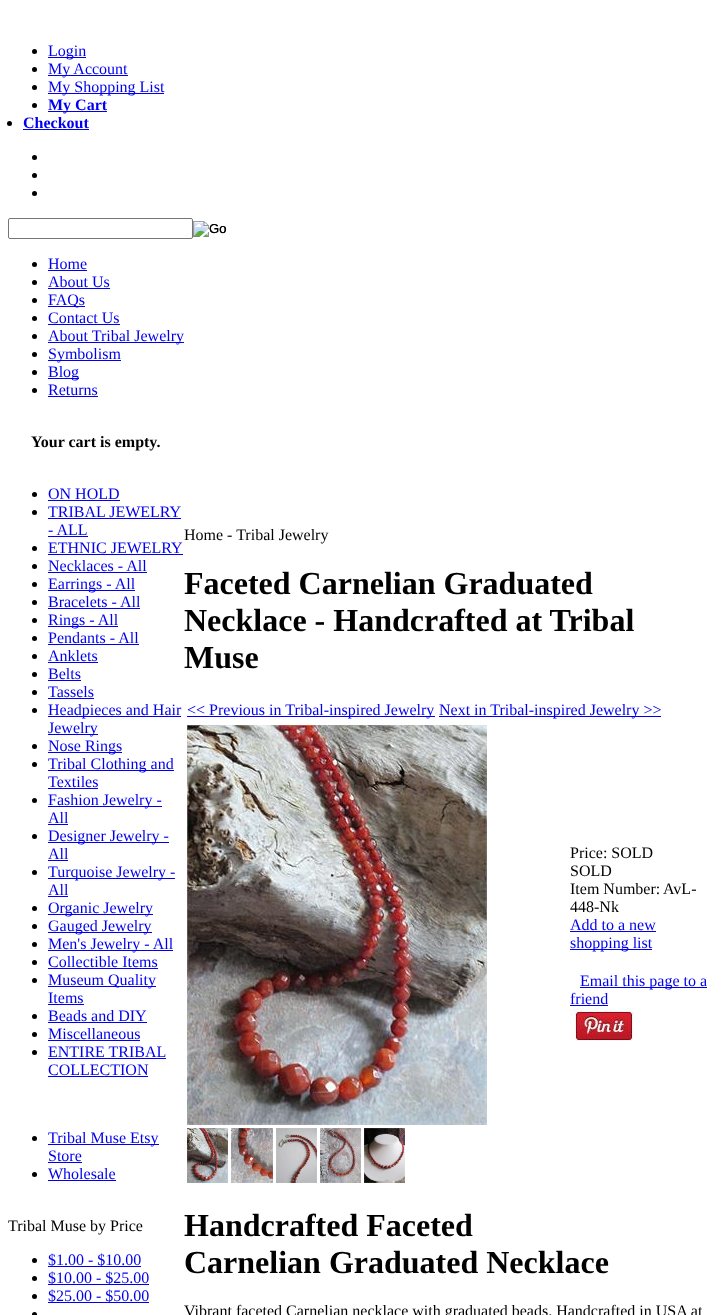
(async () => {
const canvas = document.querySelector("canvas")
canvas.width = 724
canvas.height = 1315
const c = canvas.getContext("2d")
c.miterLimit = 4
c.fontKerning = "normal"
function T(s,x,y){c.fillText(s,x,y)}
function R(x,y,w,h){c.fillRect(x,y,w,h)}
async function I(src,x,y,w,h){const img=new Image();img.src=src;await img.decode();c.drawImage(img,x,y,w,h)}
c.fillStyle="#fff"
R(0,0,724,1315)
c.fillStyle="#000"
c.beginPath()
c.arc(34.5,51.5,2.5,0,7)
c.fill()
c.fillStyle="#00e"
R(48,57,38,1)
c.font="16px Liberation Serif"
T("Login",48,56)
c.fillStyle="#000"
c.beginPath()
c.arc(34.5,69.5,2.5,0,7)
c.fill()
c.fillStyle="#00e"
R(48,75,80,1)
T("My Account",48,74)
c.fillStyle="#000"
c.beginPath()
c.arc(34.5,87.5,2.5,0,7)
c.fill()
c.fillStyle="#00e"
R(48,93,116,1)
T("My Shopping List",48,92)
c.fillStyle="#000"
c.beginPath()
c.arc(34.5,105.5,2.5,0,7)
c.fill()
c.fillStyle="#00e"
R(48,111,59,1)
c.font="bold 16px Liberation Serif"
T("My Cart",48,110)
c.fillStyle="#000"
c.beginPath()
c.arc(9.5,123.5,2.5,0,7)
c.fill()
c.fillStyle="#00e"
T("Checkout",23,128)
R(23,129,66,1)
c.fillStyle="#000"
c.beginPath()
c.arc(34.5,157.5,2.5,0,7)
c.fill()
c.beginPath()
c.arc(34.5,175.5,2.5,0,7)
c.fill()
c.beginPath()
c.arc(34.5,193.5,2.5,0,7)
c.fill()
c.beginPath()
c.roundRect(8.5,218.5,184,20,1.5)
c.strokeStyle="#767676"
c.stroke()
await I("1.png",193,221,34,16)
c.font="13px Liberation Sans"
T("Go",209,233)
c.beginPath()
c.arc(34.5,264.5,2.5,0,7)
c.fill()
c.font="16px Liberation Serif"
c.fillStyle="#00e"
T("Home",48,269)
R(48,270,39,1)
c.fillStyle="#000"
c.beginPath()
c.arc(34.5,282.5,2.5,0,7)
c.fill()
c.fillStyle="#00e"
T("About Us",48,287)
R(48,288,62,1)
c.fillStyle="#000"
c.beginPath()
c.arc(34.5,300.5,2.5,0,7)
c.fill()
c.fillStyle="#00e"
R(48,306,37,1)
T("FAQs",48,305)
c.fillStyle="#000"
c.beginPath()
c.arc(34.5,318.5,2.5,0,7)
c.fill()
c.fillStyle="#00e"
T("Contact Us",48,323)
R(48,324,72,1)
c.fillStyle="#000"
c.beginPath()
c.arc(34.5,336.5,2.5,0,7)
c.fill()
c.fillStyle="#00e"
R(48,342,136,1)
T("About Tribal Jewelry",48,341)
c.fillStyle="#000"
c.beginPath()
c.arc(34.5,354.5,2.5,0,7)
c.fill()
c.fillStyle="#00e"
R(48,360,73,1)
T("Symbolism",48,359)
c.fillStyle="#000"
c.beginPath()
c.arc(34.5,372.5,2.5,0,7)
c.fill()
c.fillStyle="#00e"
R(48,378,31,1)
T("Blog",48,377)
c.fillStyle="#000"
c.beginPath()
c.arc(34.5,390.5,2.5,0,7)
c.fill()
c.fillStyle="#00e"
T("Returns",48,395)
R(48,396,50,1)
c.font="bold 16px Liberation Serif"
c.fillStyle="#000"
T("Your cart is empty.",31,447)
c.beginPath()
c.arc(34.5,494.5,2.5,0,7)
c.fill()
c.font="16px Liberation Serif"
c.fillStyle="#00e"
T("ON HOLD",48,499)
R(48,500,72,1)
c.fillStyle="#000"
c.beginPath()
c.arc(34.5,512.5,2.5,0,7)
c.fill()
c.fillStyle="#00e"
T("TRIBAL JEWELRY",48,517)
R(48,518,133,1)
T("- ALL",48,535)
R(48,536,40,1)
c.fillStyle="#000"
c.beginPath()
c.arc(34.5,548.5,2.5,0,7)
c.fill()
c.fillStyle="#00e"
T("ETHNIC JEWELRY",48,553)
R(48,554,135,1)
c.fillStyle="#000"
c.beginPath()
c.arc(34.5,566.5,2.5,0,7)
c.fill()
c.fillStyle="#00e"
T("Necklaces - All",48,571)
R(48,572,99,1)
c.fillStyle="#000"
c.beginPath()
c.arc(34.5,584.5,2.5,0,7)
c.fill()
c.fillStyle="#00e"
R(48,590,87,1)
T("Earrings - All",48,589)
c.fillStyle="#000"
c.beginPath()
c.arc(34.5,602.5,2.5,0,7)
c.fill()
c.fillStyle="#00e"
T("Bracelets - All",48,607)
R(48,608,92,1)
c.fillStyle="#000"
c.beginPath()
c.arc(34.5,620.5,2.5,0,7)
c.fill()
c.fillStyle="#00e"
R(48,626,70,1)
T("Rings - All",48,625)
c.fillStyle="#000"
c.beginPath()
c.arc(34.5,638.5,2.5,0,7)
c.fill()
c.fillStyle="#00e"
T("Pendants - All",48,643)
R(48,644,91,1)
c.fillStyle="#000"
c.beginPath()
c.arc(34.5,656.5,2.5,0,7)
c.fill()
c.fillStyle="#00e"
T("Anklets",48,661)
R(48,662,50,1)
c.fillStyle="#000"
c.beginPath()
c.arc(34.5,674.5,2.5,0,7)
c.fill()
c.fillStyle="#00e"
T("Belts",48,679)
R(48,680,33,1)
c.fillStyle="#000"
c.beginPath()
c.arc(34.5,692.5,2.5,0,7)
c.fill()
c.fillStyle="#00e"
T("Tassels",48,697)
R(48,698,46,1)
c.fillStyle="#000"
c.beginPath()
c.arc(34.5,710.5,2.5,0,7)
c.fill()
c.fillStyle="#00e"
R(48,716,133,1)
T("Headpieces and Hair",48,715)
R(48,734,50,1)
T("Jewelry",48,733)
c.fillStyle="#000"
c.beginPath()
c.arc(34.5,746.5,2.5,0,7)
c.fill()
c.fillStyle="#00e"
R(48,752,74,1)
T("Nose Rings",48,751)
c.fillStyle="#000"
c.beginPath()
c.arc(34.5,764.5,2.5,0,7)
c.fill()
c.fillStyle="#00e"
R(48,770,126,1)
T("Tribal Clothing and",48,769)
T("Textiles",48,787)
R(48,788,50,1)
c.fillStyle="#000"
c.beginPath()
c.arc(34.5,800.5,2.5,0,7)
c.fill()
c.fillStyle="#00e"
R(48,806,114,1)
T("Fashion Jewelry -",48,805)
T("All",48,823)
R(48,824,20,1)
c.fillStyle="#000"
c.beginPath()
c.arc(34.5,836.5,2.5,0,7)
c.fill()
c.fillStyle="#00e"
R(48,842,121,1)
T("Designer Jewelry -",48,841)
T("All",48,859)
R(48,860,20,1)
c.fillStyle="#000"
c.beginPath()
c.arc(34.5,872.5,2.5,0,7)
c.fill()
c.fillStyle="#00e"
R(48,878,127,1)
T("Turquoise Jewelry -",48,877)
T("All",48,895)
R(48,896,20,1)
c.fillStyle="#000"
c.beginPath()
c.arc(34.5,908.5,2.5,0,7)
c.fill()
c.fillStyle="#00e"
R(48,914,105,1)
T("Organic Jewelry",48,913)
c.fillStyle="#000"
c.beginPath()
c.arc(34.5,926.5,2.5,0,7)
c.fill()
c.fillStyle="#00e"
R(48,932,104,1)
T("Gauged Jewelry",48,931)
c.fillStyle="#000"
c.beginPath()
c.arc(34.5,944.5,2.5,0,7)
c.fill()
c.fillStyle="#00e"
R(48,950,125,1)
T("Men's Jewelry - All",48,949)
c.fillStyle="#000"
c.beginPath()
c.arc(34.5,962.5,2.5,0,7)
c.fill()
c.fillStyle="#00e"
T("Collectible Items",48,967)
R(48,968,110,1)
c.fillStyle="#000"
c.beginPath()
c.arc(34.5,980.5,2.5,0,7)
c.fill()
c.fillStyle="#00e"
R(48,986,108,1)
T("Museum Quality",48,985)
T("Items",48,1003)
R(48,1004,36,1)
c.fillStyle="#000"
c.beginPath()
c.arc(34.5,1016.5,2.5,0,7)
c.fill()
c.fillStyle="#00e"
T("Beads and DIY",48,1021)
R(48,1022,99,1)
c.fillStyle="#000"
c.beginPath()
c.arc(34.5,1034.5,2.5,0,7)
c.fill()
c.fillStyle="#00e"
T("Miscellaneous",48,1039)
R(48,1040,92,1)
c.fillStyle="#000"
c.beginPath()
c.arc(34.5,1052.5,2.5,0,7)
c.fill()
c.fillStyle="#00e"
T("ENTIRE TRIBAL",48,1057)
R(48,1058,118,1)
T("COLLECTION",48,1075)
R(48,1076,100,1)
c.fillStyle="#000"
c.beginPath()
c.arc(34.5,1138.5,2.5,0,7)
c.fill()
c.fillStyle="#00e"
R(48,1144,111,1)
T("Tribal Muse Etsy",48,1143)
T("Store",48,1161)
R(48,1162,34,1)
c.fillStyle="#000"
c.beginPath()
c.arc(34.5,1174.5,2.5,0,7)
c.fill()
c.fillStyle="#00e"
T("Wholesale",48,1179)
R(48,1180,68,1)
c.fillStyle="#000"
T("Tribal Muse by Price",8,1231)
c.beginPath()
c.arc(34.5,1260.5,2.5,0,7)
c.fill()
c.fillStyle="#00e"
R(48,1266,93,1)
T("$1.00 - $10.00",48,1265)
c.fillStyle="#000"
c.beginPath()
c.arc(34.5,1278.5,2.5,0,7)
c.fill()
c.fillStyle="#00e"
R(48,1284,101,1)
T("$10.00 - $25.00",48,1283)
c.fillStyle="#000"
c.beginPath()
c.arc(34.5,1296.5,2.5,0,7)
c.fill()
c.fillStyle="#00e"
R(48,1302,101,1)
T("$25.00 - $50.00",48,1301)
c.fillStyle="#000"
c.beginPath()
c.arc(34.5,1314.5,2.5,0,7)
c.fill()
T("Home - Tribal Jewelry",184,540)
c.font="bold 32px Liberation Serif"
T("Faceted Carnelian Graduated",184,594)
T("Necklace - Handcrafted at Tribal",184,631)
T("Muse",184,668)
c.fillStyle="#00e"
R(187,716,248,1)
c.font="16px Liberation Serif"
T("<< Previous in Tribal-inspired Jewelry",187,715)
R(439,716,222,1)
T("Next in Tribal-inspired Jewelry >>",439,715)
await I("2.png",187,725,300,400)
await I("3.png",187,1128,41,55)
await I("4.png",231,1128,42,55)
await I("5.png",276,1128,41,55)
await I("6.png",320,1128,41,55)
await I("7.png",364,1128,41,55)
c.fillStyle="#000"
T("Price: SOLD",570,858)
T("SOLD",570,876)
T("Item Number:",570,894)
T("AvL-",663,894)
T("448-Nk",570,912)
c.fillStyle="#00e"
T("Add to a new",570,930)
R(570,931,86,1)
R(570,949,82,1)
T("shopping list",570,948)
R(580,987,127,1)
T("Email this page to a",580,986)
T("friend",570,1004)
R(570,1005,38,1)
await I("8.png",570,1008,64,33)
c.font="bold 32px Liberation Serif"
c.fillStyle="#000"
T("Handcrafted Faceted",184,1236)
T("Carnelian Graduated Necklace",184,1273)
c.font="16px Liberation Serif"
T("Vibrant faceted Carnelian necklace with graduated beads. Handcrafted in USA at",184,1316)
})()
